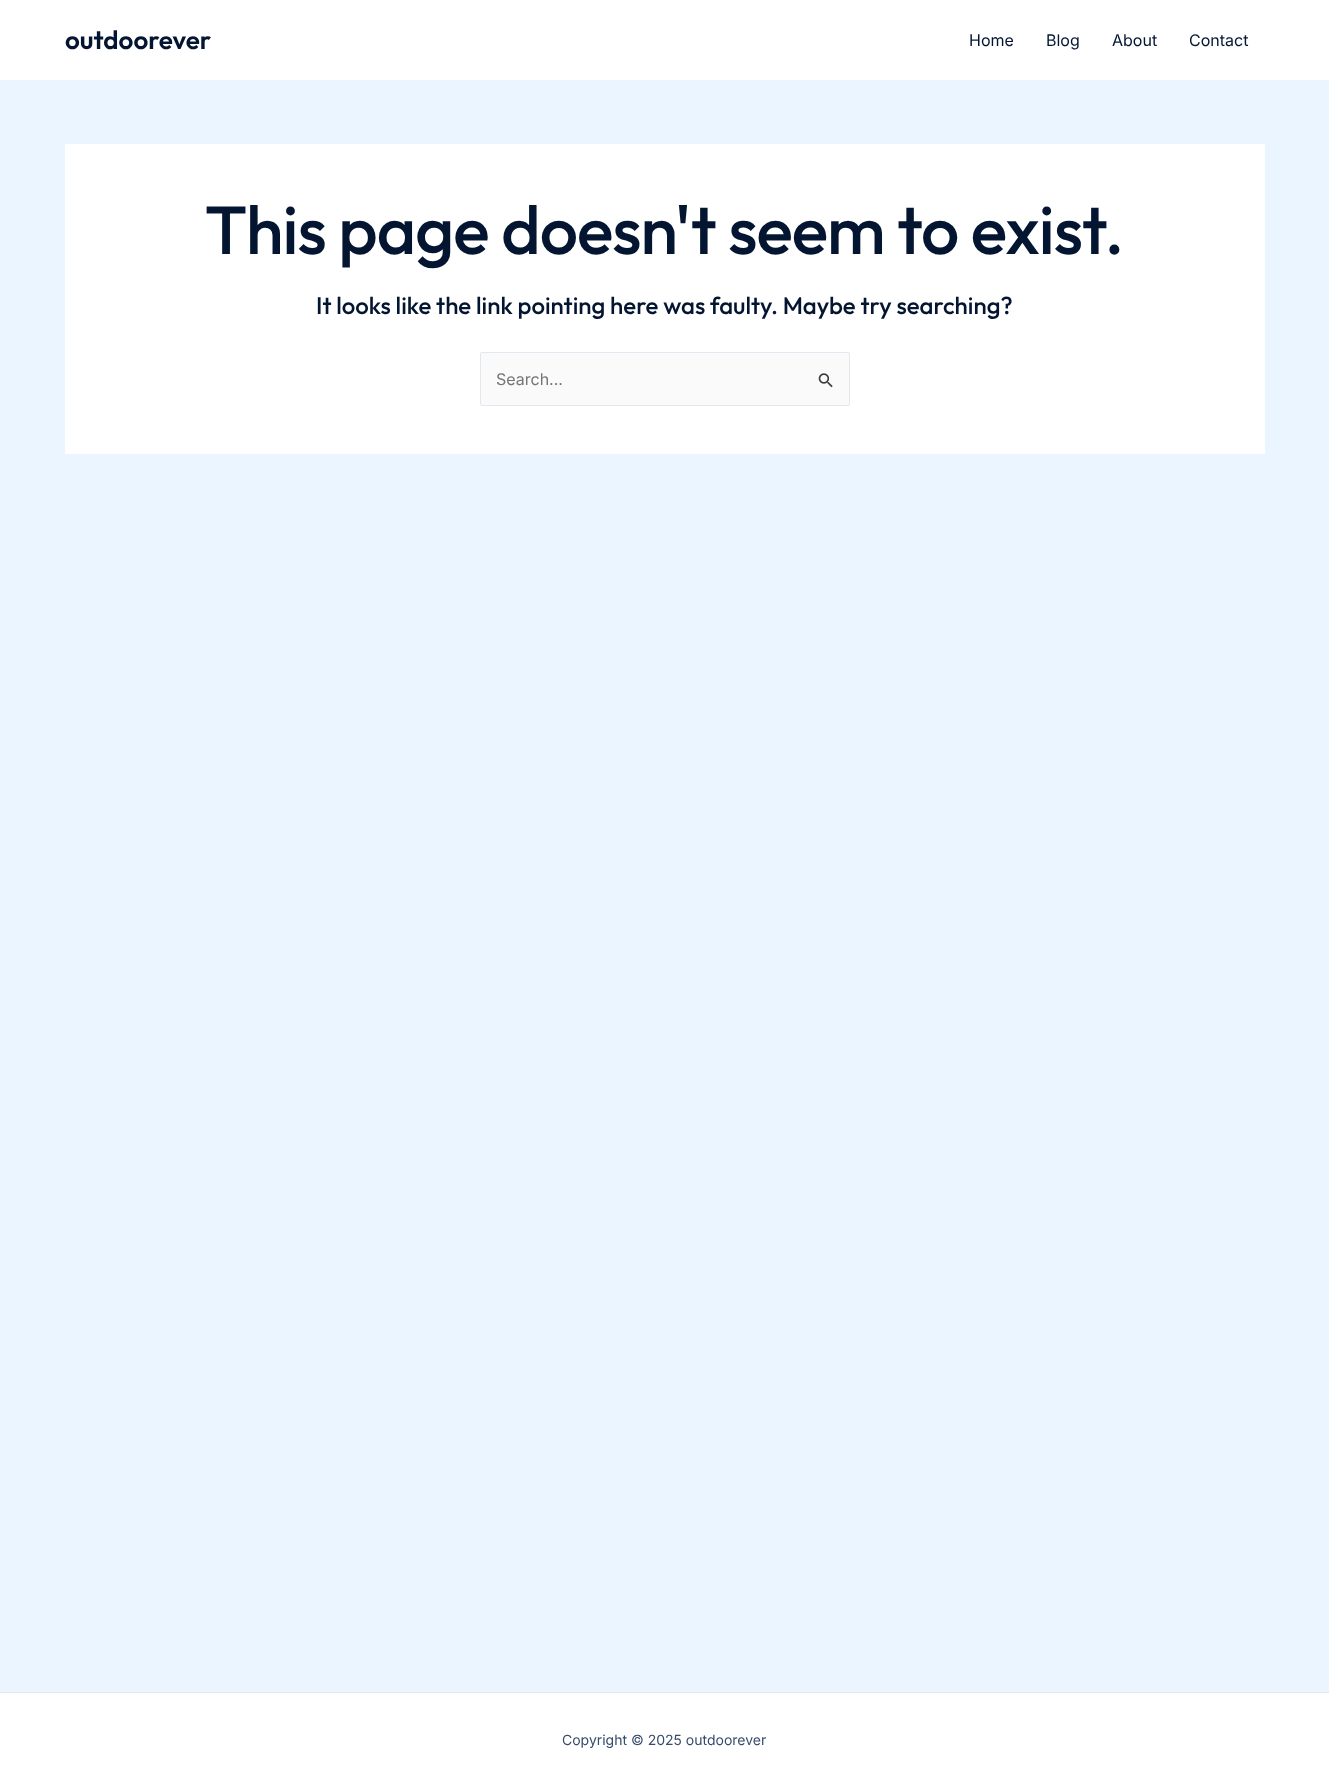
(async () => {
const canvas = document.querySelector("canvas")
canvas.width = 1329
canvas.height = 1787
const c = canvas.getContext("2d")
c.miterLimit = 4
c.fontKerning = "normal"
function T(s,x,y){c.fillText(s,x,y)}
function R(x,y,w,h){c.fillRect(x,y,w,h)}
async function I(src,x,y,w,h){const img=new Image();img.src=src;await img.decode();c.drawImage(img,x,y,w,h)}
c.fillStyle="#ebf5ff"
R(0,0,1329,1787)
c.fillStyle="#fff"
R(0,0,1329,80)
c.font="600 26px Outfit"
c.fillStyle="#031530"
T("outdoorever",65,49)
c.font="16px Inter"
T("Home",969,46)
T("Blog",1046,46)
T("About",1112,46)
T("Contact",1189,46)
c.fillStyle="#fff"
R(65,144,1200,310)
c.letterSpacing="-1px"
c.font="500 68px Outfit"
c.fillStyle="#031530"
T("This page doesn't seem to exist.",205,254)
c.letterSpacing="0px"
c.font="500 24px Outfit"
T("It looks like the link pointing here was faulty. Maybe try searching?",316,314)
c.fillStyle="#fafafa"
c.beginPath()
c.roundRect(480.5,352.5,369,53,1.5)
c.fill()
c.strokeStyle="#e2e8f0"
c.stroke()
c.font="16px Inter"
c.fillStyle="#757575"
T("Search...",496,385)
await I("1.png",818,373,15,15)
c.fillStyle="#fff"
R(0,1693,1329,94)
c.fillStyle="#e2e8f0"
R(0,1692,1329,1)
c.font="14px Inter"
c.fillStyle="#374c6c"
T("Copyright © 2025 outdoorever",562,1745)
})()
